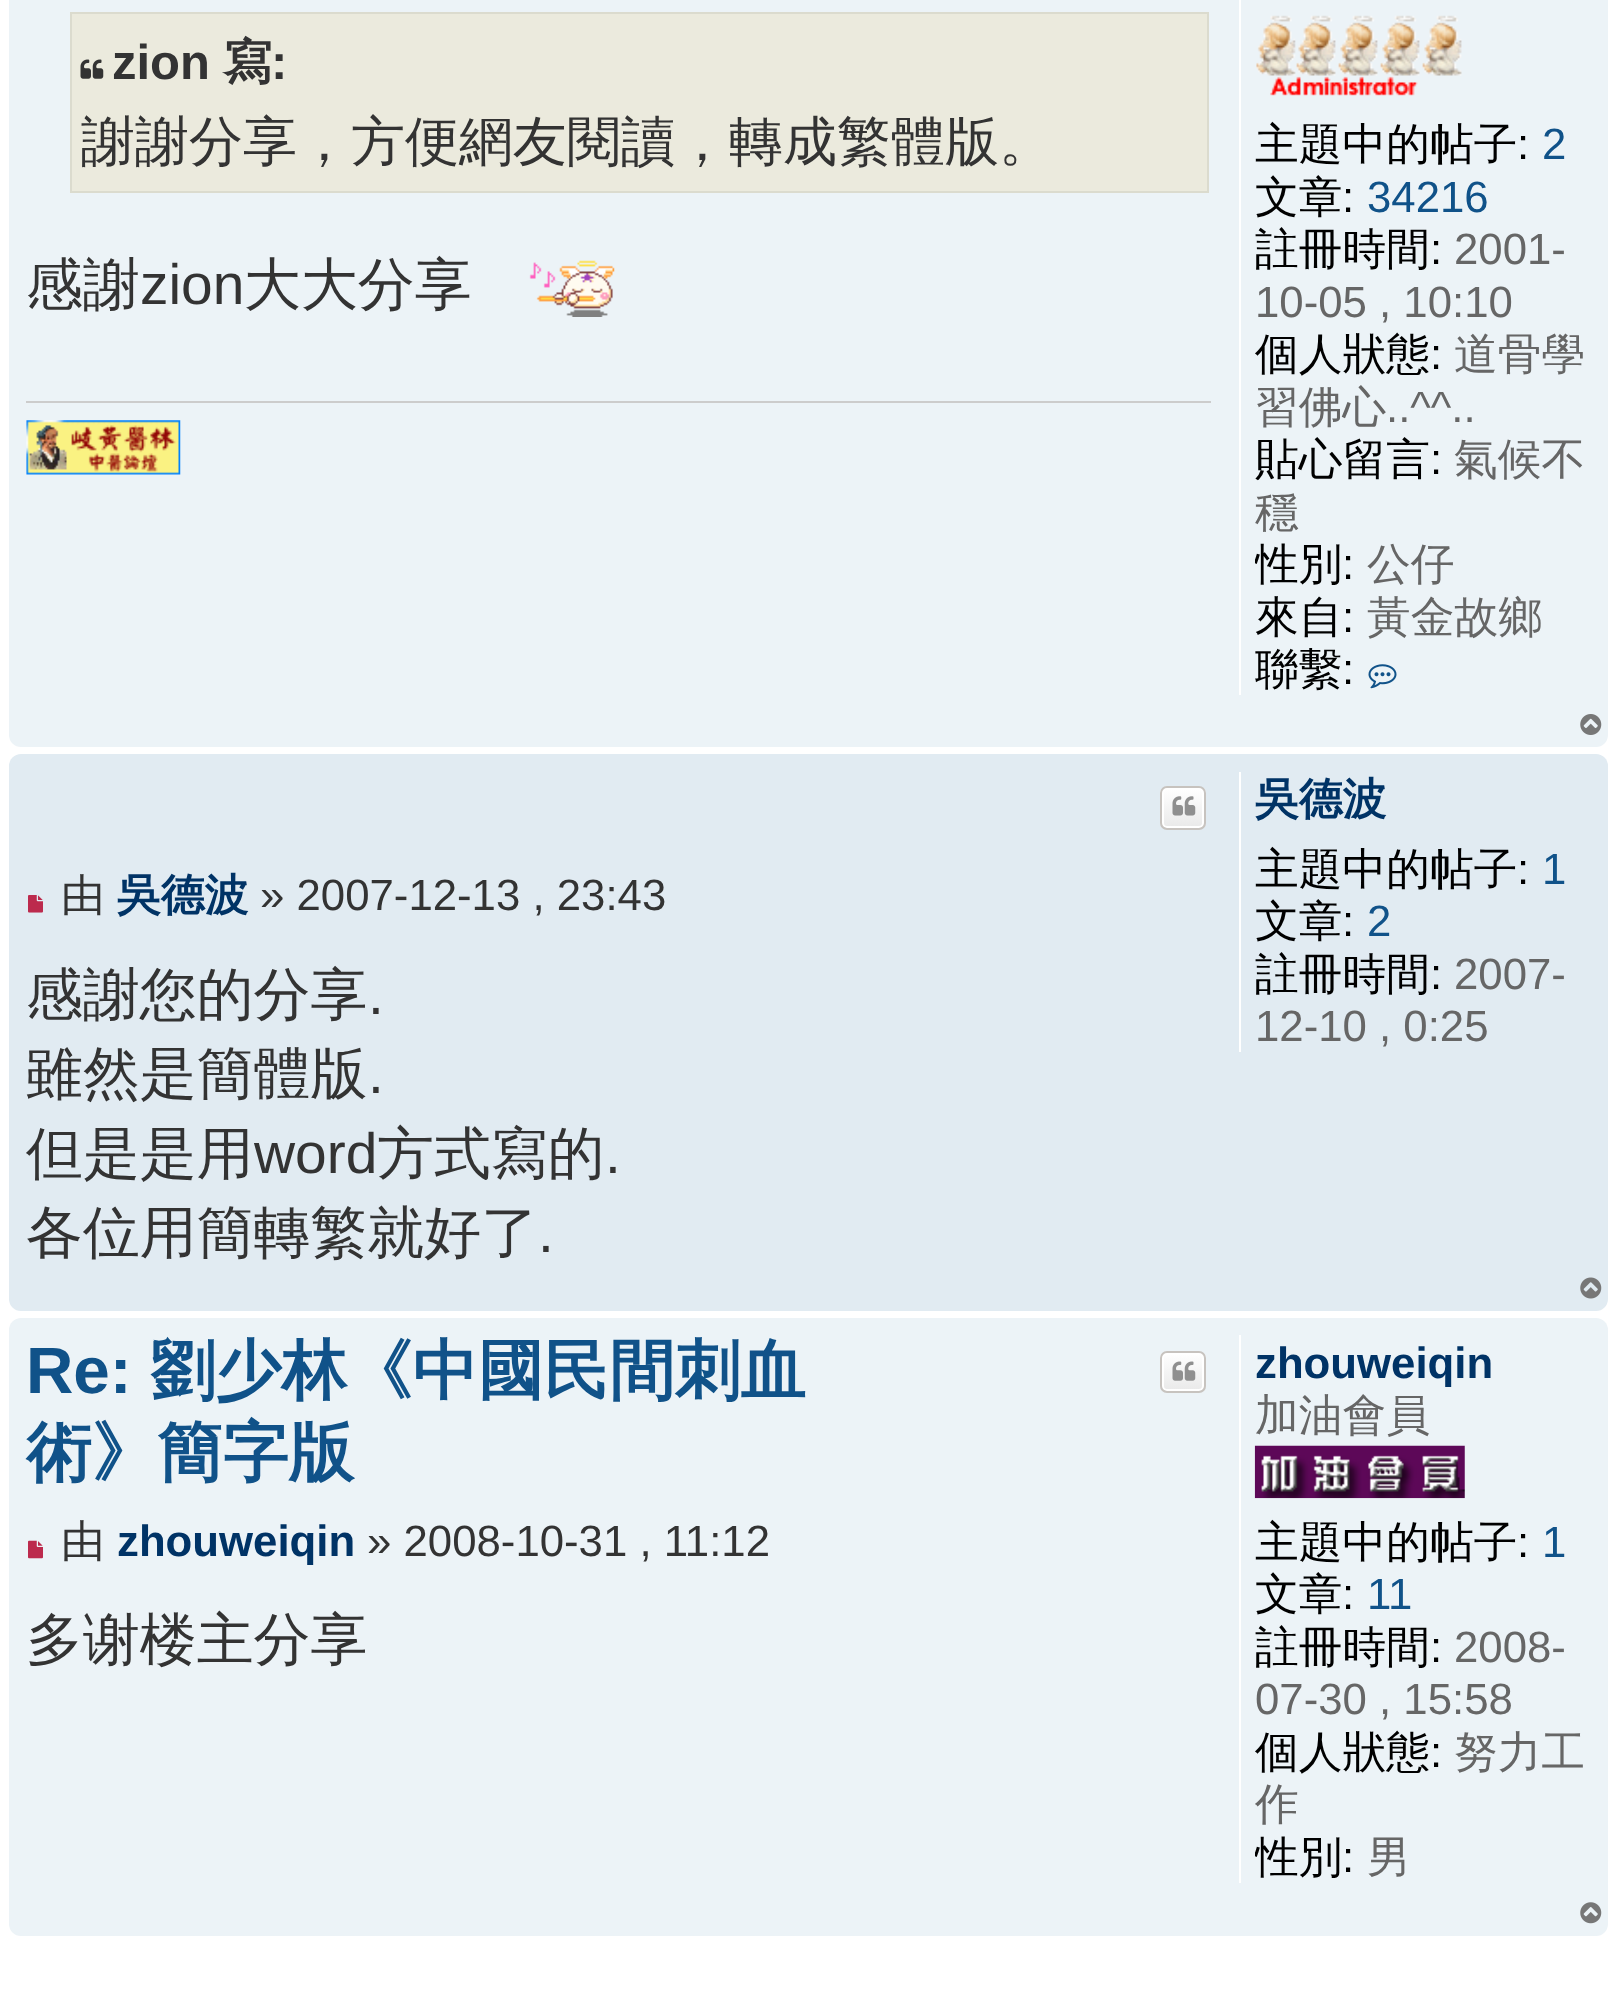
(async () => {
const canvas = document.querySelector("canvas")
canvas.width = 1616
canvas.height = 2013
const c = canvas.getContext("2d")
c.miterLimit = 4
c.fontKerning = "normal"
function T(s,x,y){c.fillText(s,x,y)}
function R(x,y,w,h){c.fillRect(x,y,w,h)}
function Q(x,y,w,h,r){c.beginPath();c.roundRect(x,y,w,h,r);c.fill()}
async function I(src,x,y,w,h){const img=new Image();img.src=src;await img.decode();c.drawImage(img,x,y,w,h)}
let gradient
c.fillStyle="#fff"
R(0,0,1616,2013)
c.fillStyle="#ecf3f7"
Q(9,-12,1599,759,12)
c.fillStyle="#ebeadd"
c.beginPath()
c.rect(71,13,1137,179)
c.fill()
c.strokeStyle="#dbdbce"
c.lineWidth=2
c.stroke()
await I("1.png",80,59,24,20)
c.font="bold 49px Liberation Sans"
c.fillStyle="#333"
T("zion",112,79)
c.font="bold 49px WenQuanYi Zen Hei"
T("寫",223,79)
c.font="bold 49px Liberation Sans"
T(":",271,79)
c.font="500 54px WenQuanYi Zen Hei"
T("謝謝分享，方便網友閱讀，轉成繁體版。",81,160)
c.font="500 56.9px WenQuanYi Zen Hei"
T("感謝",26,304)
c.font="56.9px Liberation Sans"
T("zion",140,304)
c.font="500 56.9px WenQuanYi Zen Hei"
T("大大分享",244,304)
await I("2.png",529,260,86,57)
c.fillStyle="#ccc"
R(26,401,1185,2)
await I("3.png",26,420,155,55)
c.fillStyle="#fff"
R(1239,0,2,695)
await I("4.png",1256,15,206,81)
c.font="500 43.75px WenQuanYi Zen Hei"
c.fillStyle="#000"
T("主題中的帖子",1255,159)
c.font="43.75px Liberation Sans"
T(":",1517,159)
c.fillStyle="#105289"
T("2",1542,159)
c.font="500 43.75px WenQuanYi Zen Hei"
c.fillStyle="#000"
T("文章",1255,212)
c.font="43.75px Liberation Sans"
T(":",1342,212)
c.fillStyle="#105289"
T("34216",1367,212)
c.font="500 43.75px WenQuanYi Zen Hei"
c.fillStyle="#000"
T("註冊時間",1255,264)
c.font="43.75px Liberation Sans"
T(":",1430,264)
c.fillStyle="#666"
T("2001-",1454,264)
T("10-05 , 10:10",1255,317)
c.font="500 43.75px WenQuanYi Zen Hei"
c.fillStyle="#000"
T("個人狀態",1255,369)
c.font="43.75px Liberation Sans"
T(":",1430,369)
c.font="500 43.75px WenQuanYi Zen Hei"
c.fillStyle="#666"
T("道骨學",1454,369)
T("習佛心",1255,422)
c.font="43.75px Liberation Sans"
T("..^^..",1386,422)
c.font="500 43.75px WenQuanYi Zen Hei"
c.fillStyle="#000"
T("貼心留言",1255,474)
c.font="43.75px Liberation Sans"
T(":",1430,474)
c.font="500 43.75px WenQuanYi Zen Hei"
c.fillStyle="#666"
T("氣候不",1454,474)
T("穩",1255,527)
c.save()
c.beginPath()
c.rect(1255,537,336,53)
c.clip()
c.fillStyle="#000"
T("性別",1255,579)
c.restore()
c.font="43.75px Liberation Sans"
c.fillStyle="#000"
T(":",1342,579)
c.font="500 43.75px WenQuanYi Zen Hei"
c.fillStyle="#666"
T("公仔",1367,579)
c.fillStyle="#000"
T("來自",1255,632)
c.font="43.75px Liberation Sans"
T(":",1342,632)
c.font="500 43.75px WenQuanYi Zen Hei"
c.fillStyle="#666"
T("黃金故鄉",1367,632)
c.fillStyle="#000"
T("聯繫",1255,684)
c.font="43.75px Liberation Sans"
T(":",1342,684)
await I("5.png",1368,664,29,25)
await I("6.png",1580,714,22,21)
c.fillStyle="#e1ebf2"
Q(9,754,1599,557,12)
c.save()
c.beginPath()
c.roundRect(1160,786,46,44,7)
c.clip()
gradient = c.createLinearGradient(1183,788,1183,828)
gradient.addColorStop(0,"#fff")
gradient.addColorStop(1,"#e9e9e9")
c.fillStyle = gradient
R(1160,788,46,40)
c.restore()
c.beginPath()
c.roundRect(1163,789,40,38,4)
c.strokeStyle="#fff"
c.stroke()
c.beginPath()
c.roundRect(1161,787,44,42,6)
c.strokeStyle="#c7c3bf"
c.stroke()
await I("7.png",1172,796,24,20)
await I("8.png",28,895,15,18)
c.font="500 43.75px WenQuanYi Zen Hei"
c.fillStyle="#333"
T("由",61,910)
c.font="bold 43.75px WenQuanYi Zen Hei"
c.fillStyle="#036"
T("吳德波",117,910)
c.font="43.75px Liberation Sans"
c.fillStyle="#333"
T("» 2007-12-13 , 23:43",260,910)
c.font="500 56.9px WenQuanYi Zen Hei"
T("感謝您的分享",26,1014)
c.font="56.9px Liberation Sans"
T(".",368,1014)
c.font="500 56.9px WenQuanYi Zen Hei"
T("雖然是簡體版",26,1093)
c.font="56.9px Liberation Sans"
T(".",368,1093)
c.font="500 56.9px WenQuanYi Zen Hei"
T("但是是用",26,1173)
c.font="56.9px Liberation Sans"
T("word",254,1173)
c.font="500 56.9px WenQuanYi Zen Hei"
T("方式寫的",377,1173)
c.font="56.9px Liberation Sans"
T(".",605,1173)
c.font="500 56.9px WenQuanYi Zen Hei"
T("各位用簡轉繁就好了",26,1252)
c.font="56.9px Liberation Sans"
T(".",538,1252)
c.fillStyle="#fff"
R(1239,772,2,280)
c.font="bold 43.75px WenQuanYi Zen Hei"
c.fillStyle="#036"
T("吳德波",1255,814)
c.font="500 43.75px WenQuanYi Zen Hei"
c.fillStyle="#000"
T("主題中的帖子",1255,884)
c.font="43.75px Liberation Sans"
T(":",1517,884)
c.fillStyle="#105289"
T("1",1542,884)
c.font="500 43.75px WenQuanYi Zen Hei"
c.fillStyle="#000"
T("文章",1255,936)
c.font="43.75px Liberation Sans"
T(":",1342,936)
c.fillStyle="#105289"
T("2",1367,936)
c.font="500 43.75px WenQuanYi Zen Hei"
c.fillStyle="#000"
T("註冊時間",1255,989)
c.font="43.75px Liberation Sans"
T(":",1430,989)
c.fillStyle="#666"
T("2007-",1454,989)
T("12-10 , 0:25",1255,1041)
await I("9.png",1580,1277,22,22)
c.fillStyle="#ecf3f7"
Q(9,1318,1599,618,12)
c.font="bold 65.6px Liberation Sans"
c.fillStyle="#105289"
T("Re:",26,1393)
c.font="bold 65.6px WenQuanYi Zen Hei"
T("劉少林《中國民間刺血",150,1393)
T("術》簡字版",26,1475)
c.save()
c.beginPath()
c.roundRect(1160,1351,46,42,7)
c.clip()
gradient = c.createLinearGradient(1183,1353,1183,1391)
gradient.addColorStop(0,"#fff")
gradient.addColorStop(1,"#e9e9e9")
c.fillStyle = gradient
R(1160,1353,46,38)
c.restore()
c.beginPath()
c.roundRect(1163,1354,40,36,4)
c.strokeStyle="#fff"
c.stroke()
c.beginPath()
c.roundRect(1161,1352,44,40,6)
c.strokeStyle="#c7c3bf"
c.stroke()
await I("10.png",1172,1361,24,20)
await I("11.png",28,1540,15,19)
c.font="500 43.75px WenQuanYi Zen Hei"
c.fillStyle="#333"
T("由",61,1556)
c.font="bold 43.75px Liberation Sans"
c.fillStyle="#036"
T("zhouweiqin",117,1556)
c.font="43.75px Liberation Sans"
c.fillStyle="#333"
T("» 2008-10-31 , 11:12",367,1556)
c.font="500 56.9px WenQuanYi Zen Hei"
T("多谢楼主分享",26,1659)
c.fillStyle="#fff"
R(1239,1335,2,548)
c.font="bold 43.75px Liberation Sans"
c.fillStyle="#036"
T("zhouweiqin",1255,1378)
c.font="500 43.75px WenQuanYi Zen Hei"
c.fillStyle="#666"
T("加油會員",1255,1430)
await I("12.png",1254,1445,211,54)
c.fillStyle="#000"
T("主題中的帖子",1255,1557)
c.font="43.75px Liberation Sans"
T(":",1517,1557)
c.fillStyle="#105289"
T("1",1542,1557)
c.font="500 43.75px WenQuanYi Zen Hei"
c.fillStyle="#000"
T("文章",1255,1609)
c.font="43.75px Liberation Sans"
T(":",1342,1609)
c.fillStyle="#105289"
T("11",1367,1609)
c.font="500 43.75px WenQuanYi Zen Hei"
c.fillStyle="#000"
T("註冊時間",1255,1662)
c.font="43.75px Liberation Sans"
T(":",1430,1662)
c.fillStyle="#666"
T("2008-",1454,1662)
T("07-30 , 15:58",1255,1714)
c.font="500 43.75px WenQuanYi Zen Hei"
c.fillStyle="#000"
T("個人狀態",1255,1767)
c.font="43.75px Liberation Sans"
T(":",1430,1767)
c.font="500 43.75px WenQuanYi Zen Hei"
c.fillStyle="#666"
T("努力工",1454,1767)
T("作",1255,1819)
c.save()
c.beginPath()
c.rect(1255,1831,336,52)
c.clip()
c.fillStyle="#000"
T("性別",1255,1872)
c.restore()
c.font="43.75px Liberation Sans"
c.fillStyle="#000"
T(":",1342,1872)
c.font="500 43.75px WenQuanYi Zen Hei"
c.fillStyle="#666"
T("男",1367,1872)
await I("13.png",1580,1902,22,22)
})()
